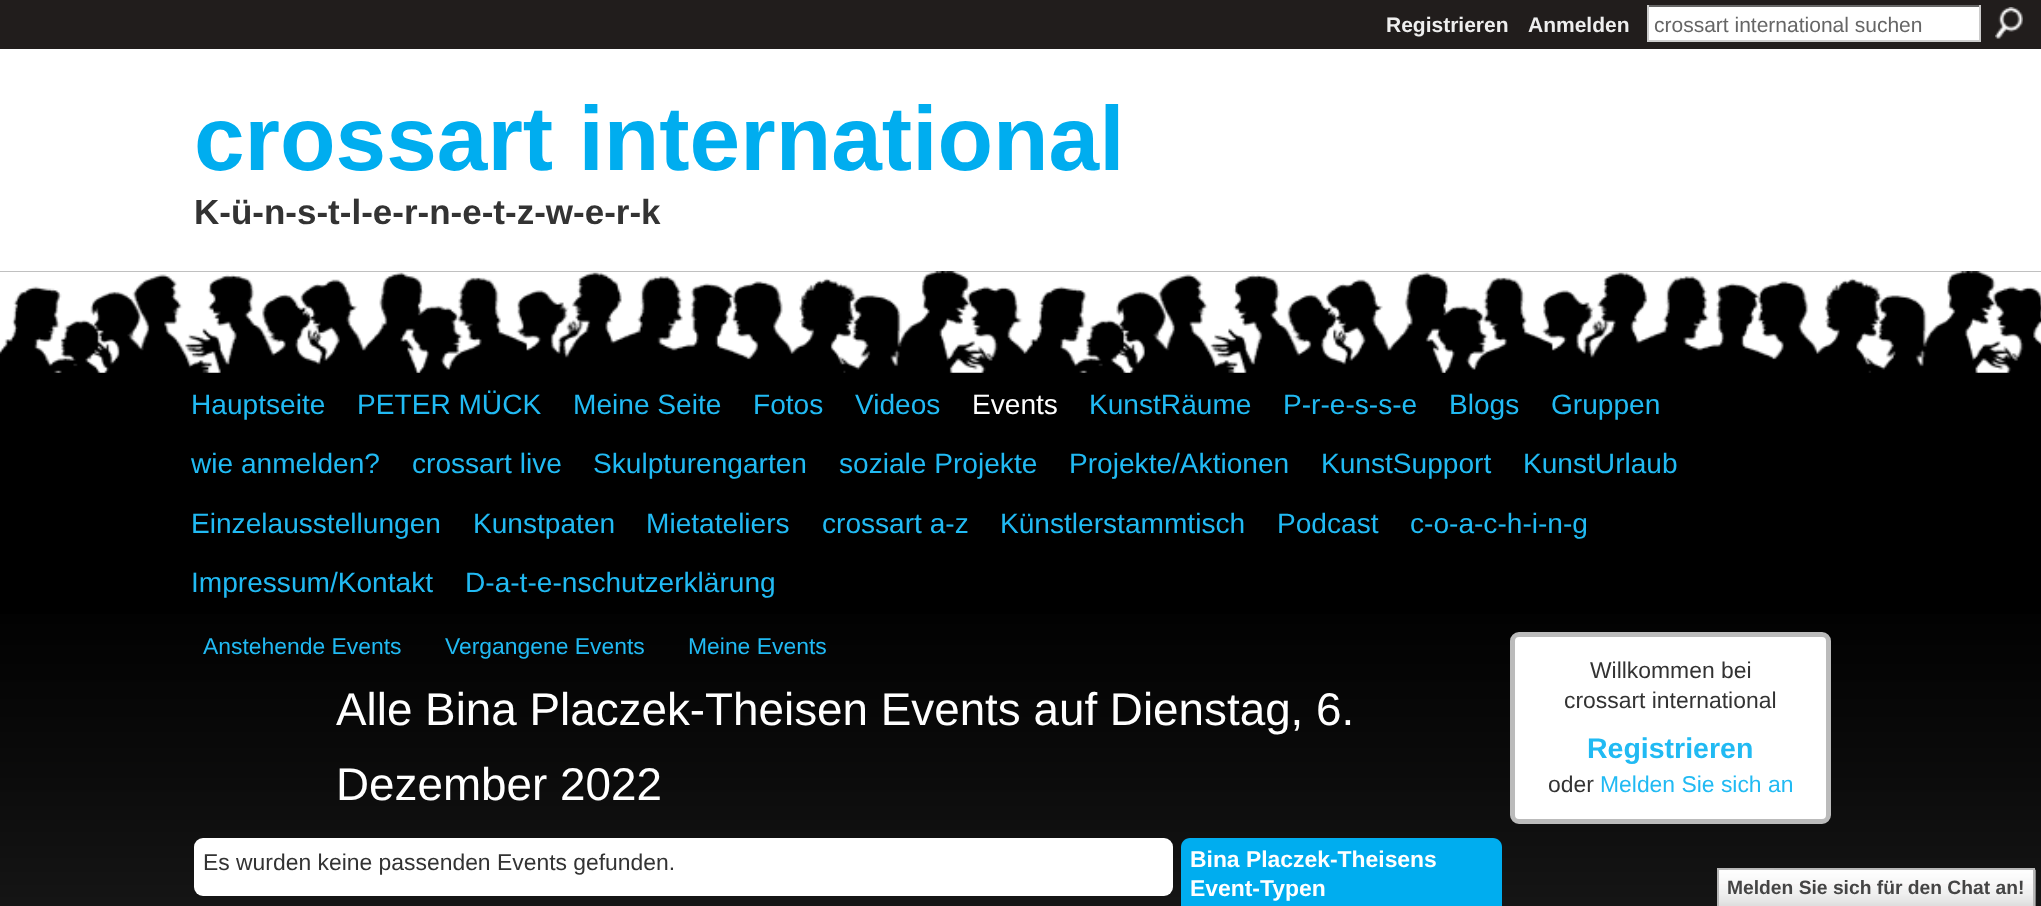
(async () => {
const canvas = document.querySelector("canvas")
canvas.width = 2041
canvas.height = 906
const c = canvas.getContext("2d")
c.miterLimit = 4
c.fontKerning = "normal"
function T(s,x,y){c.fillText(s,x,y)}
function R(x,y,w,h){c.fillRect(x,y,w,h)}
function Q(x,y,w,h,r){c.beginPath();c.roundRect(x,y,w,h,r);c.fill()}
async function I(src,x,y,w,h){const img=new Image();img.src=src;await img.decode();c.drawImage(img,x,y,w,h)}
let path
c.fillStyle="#fff"
R(0,0,2041,906)
await I("1.png",0,614,2041,292)
c.fillStyle="#211d1c"
R(0,0,2041,49)
c.font="bold 21px Liberation Sans"
c.fillStyle="#eee"
T("Registrieren",1386,32)
T("Anmelden",1528,32)
c.fillStyle="#fff"
R(1649,7,330,33)
c.fillStyle="#666"
R(1647,5,334,2)
c.fillStyle="#ccc"
R(1979,5,2,37)
R(1647,40,334,2)
R(1647,5,2,37)
c.font="21px Liberation Sans"
c.fillStyle="#666"
T("crossart international suchen",1654,32)
await I("2.png",1995,7,28,32)
c.font="bold 91px Liberation Sans"
c.fillStyle="#00adef"
T("crossart international",194,170)
c.font="bold 35px Liberation Sans"
c.fillStyle="#333"
T("K-ü-n-s-t-l-e-r-n-e-t-z-w-e-r-k",194,224)
c.fillStyle="#000"
R(0,271,2041,343)
await I("3.png",0,271,2041,102)
c.font="28.1px Liberation Sans"
c.fillStyle="#21baf3"
T("Hauptseite",191,414)
T("PETER MÜCK",357,414)
T("Meine Seite",573,414)
T("Fotos",753,414)
T("Videos",855,414)
c.fillStyle="#fff"
T("Events",972,414)
c.fillStyle="#21baf3"
T("KunstRäume",1089,414)
T("P-r-e-s-s-e",1283,414)
T("Blogs",1449,414)
T("Gruppen",1551,414)
T("wie anmelden?",191,473)
T("crossart live",412,473)
T("Skulpturengarten",593,473)
T("soziale Projekte",839,473)
T("Projekte/Aktionen",1069,473)
T("KunstSupport",1321,473)
T("KunstUrlaub",1523,473)
T("Einzelausstellungen",191,533)
T("Kunstpaten",473,533)
T("Mietateliers",646,533)
T("crossart a-z",822,533)
T("Künstlerstammtisch",1000,533)
T("Podcast",1277,533)
T("c-o-a-c-h-i-n-g",1410,533)
T("Impressum/Kontakt",191,592)
T("D-a-t-e-nschutzerklärung",465,592)
c.font="22.9px Liberation Sans"
T("Anstehende Events",203,654)
T("Vergangene Events",445,654)
T("Meine Events",688,654)
c.font="45.8px Liberation Sans"
c.fillStyle="#fff"
T("Alle Bina Placzek-Theisen Events auf Dienstag, 6.",336,725)
T("Dezember 2022",336,800)
Q(194,838,979,58,9)
c.font="22.9px Liberation Sans"
c.fillStyle="#333"
T("Es wurden keine passenden Events gefunden.",203,870)
c.fillStyle="#00adef"
path = new Path2D("M1190 838h303c5 0 9 4 9 9v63h-321v-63c0-5 4-9 9-9z")
c.fill(path)
c.font="bold 22.9px Liberation Sans"
c.fillStyle="#fff"
T("Bina Placzek-Theisens",1190,867)
T("Event-Typen",1190,896)
c.beginPath()
c.roundRect(1512.5,634.5,316,187,6.5)
c.fill()
c.strokeStyle="#bbb"
c.lineWidth=5
c.stroke()
c.font="22.9px Liberation Sans"
c.fillStyle="#333"
T("Willkommen bei",1590,678)
T("crossart international",1564,708)
c.font="bold 28.5px Liberation Sans"
c.fillStyle="#21baf3"
T("Registrieren",1587,758)
c.font="22.9px Liberation Sans"
c.fillStyle="#333"
T("oder",1548,792)
c.fillStyle="#21baf3"
T("Melden Sie sich an",1600,792)
await I("4.png",1719,869,317,37)
c.strokeStyle="#b7b7b7"
c.lineWidth=2
c.strokeRect(1718,869,316,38)
c.fillStyle="#bbb"
R(1728,869,46,1)
c.font="bold 19.25px Liberation Sans"
c.fillStyle="#454545"
T("Melden Sie sich für den Chat an!",1727,894)
})()
